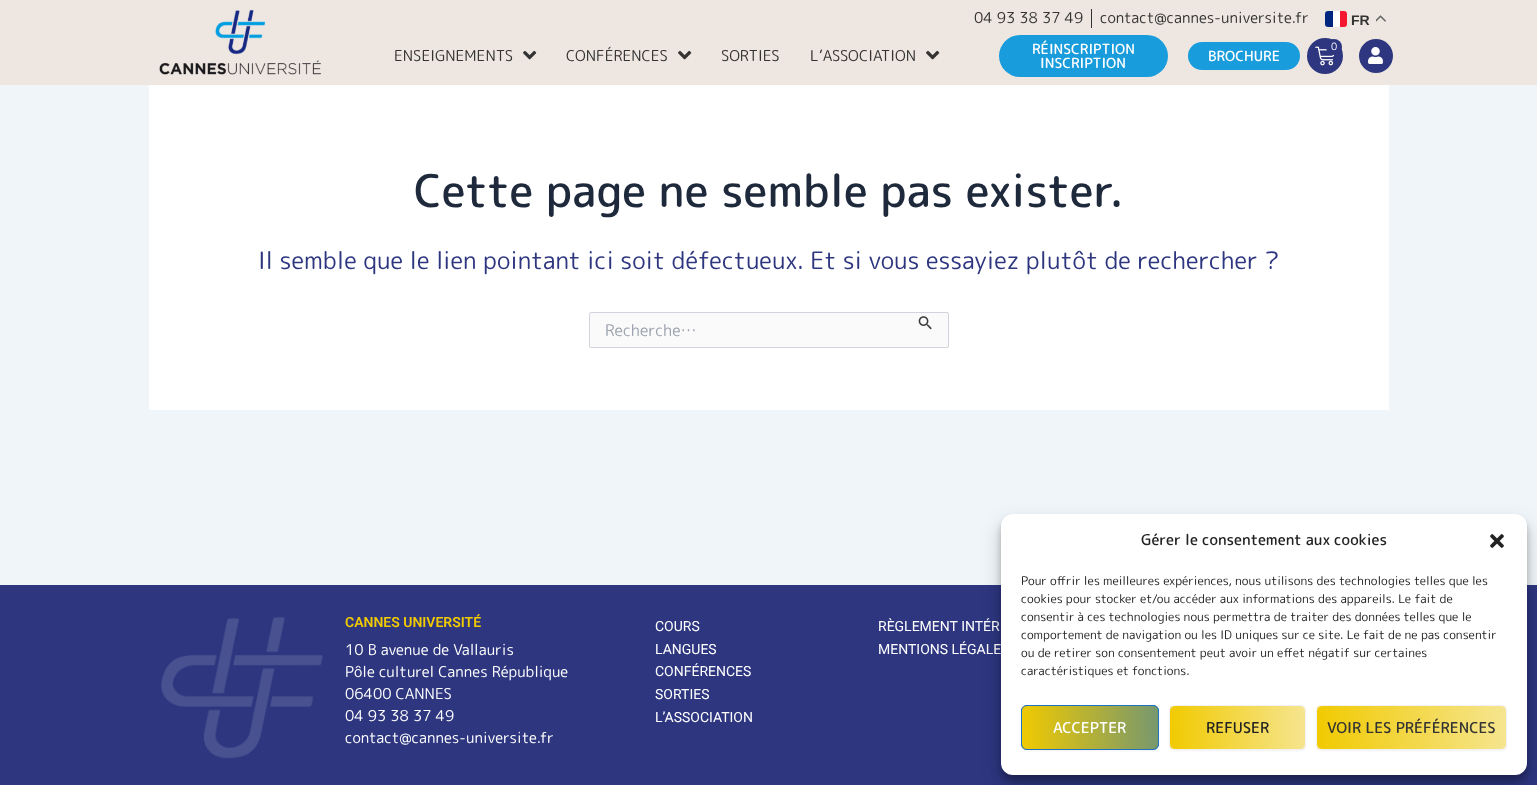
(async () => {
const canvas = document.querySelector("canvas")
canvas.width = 1537
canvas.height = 785
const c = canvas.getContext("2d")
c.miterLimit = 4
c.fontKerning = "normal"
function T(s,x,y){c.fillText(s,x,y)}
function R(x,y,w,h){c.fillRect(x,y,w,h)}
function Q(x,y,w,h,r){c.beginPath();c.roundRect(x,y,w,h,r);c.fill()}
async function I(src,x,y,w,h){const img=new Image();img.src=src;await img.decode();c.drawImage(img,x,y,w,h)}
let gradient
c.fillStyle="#f0f5fa"
R(0,0,1537,785)
c.fillStyle="#eee7e1"
R(0,0,1537,85)
await I("1.png",159,10,162,65)
c.font="15px 'Rounded Mplus 1c'"
c.fillStyle="#333"
T("04 93 38 37 49",974,23)
R(1091,9,1,19)
T("contact@cannes-universite.fr",1100,23)
c.fillStyle="#fff"
Q(1325,11,22,16,3)
c.fillStyle="#00267f"
c.beginPath()
c.roundRect(1325,11,8,16,[3,0,0,3])
c.fill()
c.fillStyle="#f31830"
c.beginPath()
c.roundRect(1340,11,7,16,[0,3,3,0])
c.fill()
c.font="bold 14px Liberation Sans"
c.fillStyle="#333"
T("FR",1351,25)
await I("2.png",1376,15,10,7)
c.font="15px 'Rounded Mplus 1c'"
T("ENSEIGNEMENTS",394,61)
await I("3.png",523,50,14,10)
T("CONFÉRENCES",566,61)
await I("3.png",678,50,14,10)
T("SORTIES",721,61)
T("L’ASSOCIATION",810,61)
await I("3.png",926,50,14,10)
c.fillStyle="#199cdc"
Q(999,35,169,42,21)
c.font="500 14px 'Rounded Mplus 1c'"
c.fillStyle="#fff"
T("RÉINSCRIPTION",1032,54)
T("INSCRIPTION",1040,68)
c.fillStyle="#2d367f"
c.beginPath()
c.arc(1325,56,18,0,7)
c.fill()
await I("4.png",1315,46,20,20)
c.beginPath()
c.arc(1334,47,8,0,7)
c.fill()
c.font="10px 'Rounded Mplus 1c'"
c.fillStyle="#fff"
T("0",1331,50)
c.fillStyle="#2d367f"
c.beginPath()
c.arc(1376,56,17,0,7)
c.fill()
await I("5.png",1368,47,15,17)
c.fillStyle="#199cdc"
Q(1188,42,112,28,14)
c.font="500 14px 'Rounded Mplus 1c'"
c.fillStyle="#fff"
T("BROCHURE",1208,61)
R(149,85,1240,325)
c.font="500 45px 'Rounded Mplus 1c'"
c.fillStyle="#1e293b"
T("Cette page ne semble pas exister.",414,207)
c.font="24px 'Rounded Mplus 1c'"
c.fillStyle="#2d367f"
T("Il semble que le lien pointant ici soit défectueux. Et si vous essayiez plutôt de rechercher ?",258,269)
c.fillStyle="#fafafa"
c.beginPath()
c.roundRect(589.5,312.5,359,35,1.5)
c.fill()
c.strokeStyle="#d1d5db"
c.stroke()
c.font="16px 'Rounded Mplus 1c'"
c.fillStyle="#9ca3af"
T("Recherche…",605,336)
await I("6.png",918,316,14,14)
c.fillStyle="#2d367f"
R(0,585,1537,200)
await I("7.png",161,617,162,142)
c.font="600 14px Roboto"
c.fillStyle="#f1ca00"
T("CANNES UNIVERSITÉ",345,627)
c.font="15px 'Rounded Mplus 1c'"
c.fillStyle="#fff"
T("10 B avenue de Vallauris",345,655)
T("Pôle culturel Cannes République",345,677)
T("06400 CANNES",345,699)
T("04 93 38 37 49",345,721)
T("contact@cannes-universite.fr",345,743)
c.font="14px Roboto"
T("COURS",655,631)
T("LANGUES",655,654)
T("CONFÉRENCES",655,676)
T("SORTIES",655,699)
T("L’ASSOCIATION",655,722)
T("RÈGLEMENT INTÉR",878,631)
T("MENTIONS LÉGALE",878,654)
c.fillStyle="#0000003b"
c.filter="blur(3px)"
c.beginPath()
c.roundRect(1001,520,526,261,12)
c.fill()
c.filter="none"
c.fillStyle="#00000030"
c.filter="blur(10px)"
c.beginPath()
c.roundRect(1001,524,526,261,12)
c.fill()
c.filter="none"
c.fillStyle="#fff"
Q(1001,514,526,261,12)
c.font="500 15px 'Rounded Mplus 1c'"
c.fillStyle="#222"
T("Gérer le consentement aux cookies",1141,545)
await I("8.png",1490,534,14,14)
c.font="12px 'Rounded Mplus 1c'"
T("Pour offrir les meilleures expériences, nous utilisons des technologies telles que les",1021,585)
T("cookies pour stocker et/ou accéder aux informations des appareils. Le fait de",1021,603)
T("consentir à ces technologies nous permettra de traiter des données telles que le",1021,621)
T("comportement de navigation ou les ID uniques sur ce site. Le fait de ne pas consentir",1021,639)
T("ou de retirer son consentement peut avoir un effet négatif sur certaines",1021,657)
T("caractéristiques et fonctions.",1021,675)
c.fillStyle="#0000000d"
c.filter="blur(1px)"
c.beginPath()
c.roundRect(1021,706,138,45,6)
c.fill()
c.filter="none"
c.fillStyle="#1e73be"
Q(1021,705,138,45,6)
c.save()
c.beginPath()
c.roundRect(1021,705,138,45,6)
c.clip()
gradient = c.createLinearGradient(1021,730,1159,725)
gradient.addColorStop(0,"#f1ca00")
gradient.addColorStop(1,"#f1ca006b")
c.fillStyle = gradient
R(1022,706,136,43)
c.restore()
c.beginPath()
c.roundRect(1021.5,705.5,137,44,5.5)
c.strokeStyle="#1e73be"
c.stroke()
c.font="500 15px 'Rounded Mplus 1c'"
c.fillStyle="#fff"
T("ACCEPTER",1053,733)
c.fillStyle="#0000000d"
c.filter="blur(1px)"
c.beginPath()
c.roundRect(1169,706,137,45,6)
c.fill()
c.filter="none"
c.save()
c.beginPath()
c.roundRect(1169,705,137,45,6)
c.clip()
gradient = c.createLinearGradient(1169,730,1306,725)
gradient.addColorStop(0,"#f1ca00")
gradient.addColorStop(1,"#f6e590")
c.fillStyle = gradient
R(1170,706,135,43)
c.restore()
c.beginPath()
c.roundRect(1169.5,705.5,136,44,5.5)
c.strokeStyle="#f2f2f2"
c.stroke()
c.fillStyle="#222"
T("REFUSER",1206,733)
c.fillStyle="#0000000d"
c.filter="blur(1px)"
c.beginPath()
c.roundRect(1316,706,191,45,6)
c.fill()
c.filter="none"
c.save()
c.beginPath()
c.roundRect(1316,705,191,45,6)
c.clip()
gradient = c.createLinearGradient(1316,731,1507,724)
gradient.addColorStop(0,"#f1ca00")
gradient.addColorStop(1,"#f6e590")
c.fillStyle = gradient
R(1317,706,189,43)
c.restore()
c.beginPath()
c.roundRect(1316.5,705.5,190,44,5.5)
c.stroke()
c.fillStyle="#333"
T("VOIR LES PRÉFÉRENCES",1327,733)
})()
